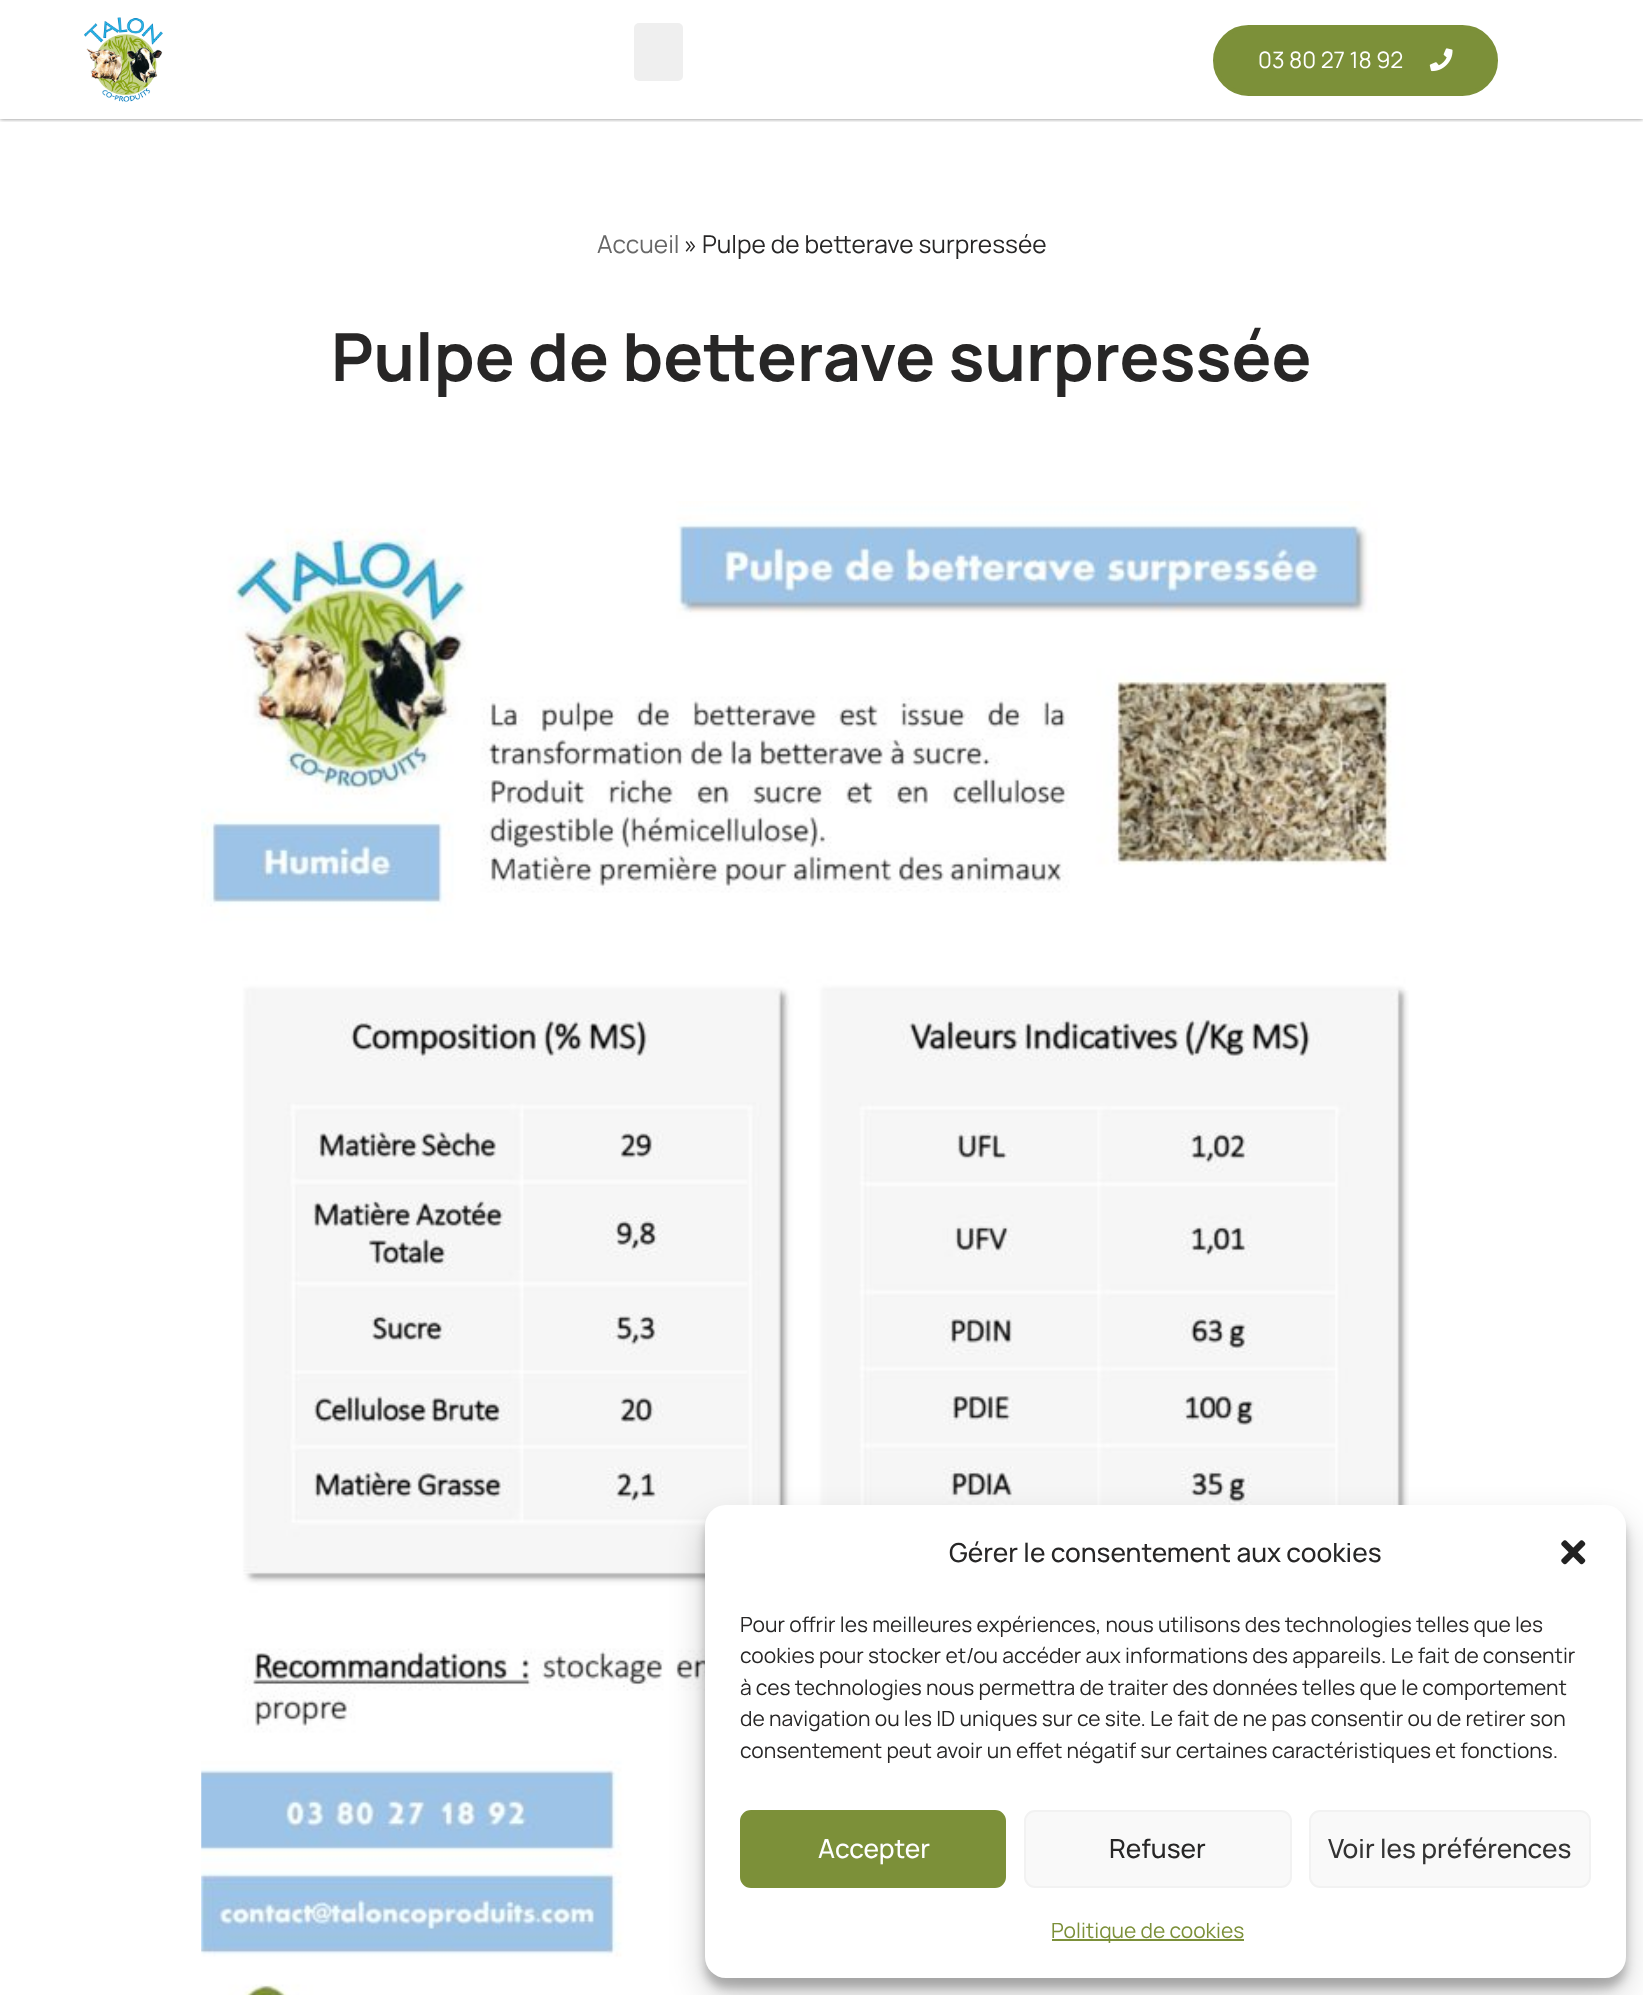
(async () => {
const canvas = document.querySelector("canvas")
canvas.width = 1643
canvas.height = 1995
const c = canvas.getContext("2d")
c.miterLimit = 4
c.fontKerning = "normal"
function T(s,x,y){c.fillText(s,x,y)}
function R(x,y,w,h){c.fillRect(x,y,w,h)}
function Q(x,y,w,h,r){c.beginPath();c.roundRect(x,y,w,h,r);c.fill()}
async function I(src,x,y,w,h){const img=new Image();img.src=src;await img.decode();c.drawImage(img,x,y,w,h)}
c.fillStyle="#fff"
R(0,0,1643,1995)
c.save()
c.beginPath()
c.rect(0,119,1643,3)
c.clip()
c.fillStyle="#00000080"
c.filter="blur(2px)"
c.beginPath()
c.rect(0,0,1643,119)
c.fill()
c.filter="none"
c.restore()
await I("1.png",84,17,79,85)
c.fillStyle="#efefef"
Q(634,23,49,58,5)
c.fillStyle="#7c9039"
c.beginPath()
c.roundRect(1215,27,281,67,33.5)
c.fill()
c.strokeStyle="#7c9039"
c.lineWidth=4
c.stroke()
c.font="22.75px Manrope"
c.fillStyle="#fff"
T("03 80 27 18 92",1258,68)
await I("2.png",1429,48,24,24)
c.font="24.5px Manrope"
c.fillStyle="#676767"
T("Accueil",597,253)
c.fillStyle="#272626"
T("» Pulpe de betterave surpressée",684,253)
c.font="bold 66.5px Manrope"
T("Pulpe de betterave surpressée",331,381)
await I("3.png",201,501,1208,1494)
c.fillStyle="#0000003b"
c.filter="blur(5px)"
c.beginPath()
c.roundRect(705,1516,921,472,21)
c.fill()
c.filter="none"
c.fillStyle="#00000030"
c.filter="blur(17.5px)"
c.beginPath()
c.roundRect(705,1523,921,472,21)
c.fill()
c.filter="none"
c.fillStyle="#fff"
Q(705,1505,921,473,21)
c.font="500 26.25px Manrope"
c.fillStyle="#272626"
T("Gérer le consentement aux cookies",949,1562)
await I("4.png",1561,1540,25,25)
c.font="21px Manrope"
T("Pour offrir les meilleures expériences, nous utilisons des technologies telles que les",740,1632)
T("cookies pour stocker et/ou accéder aux informations des appareils. Le fait de consentir",740,1663)
T("à ces technologies nous permettra de traiter des données telles que le comportement",740,1695)
T("de navigation ou les ID uniques sur ce site. Le fait de ne pas consentir ou de retirer son",740,1726)
T("consentement peut avoir un effet négatif sur certaines caractéristiques et fonctions.",740,1758)
c.fillStyle="#7c9039"
c.beginPath()
c.roundRect(741,1811,264,76,10)
c.fill()
c.lineWidth=2
c.stroke()
c.font="500 26.25px Manrope"
c.fillStyle="#fff"
T("Accepter",818,1858)
c.fillStyle="#f9f9f9"
c.beginPath()
c.roundRect(1025,1811,266,76,10)
c.fill()
c.strokeStyle="#f2f2f2"
c.stroke()
c.fillStyle="#272626"
T("Refuser",1109,1858)
c.fillStyle="#f9f9f9"
c.beginPath()
c.roundRect(1310,1811,280,76,10)
c.fill()
c.stroke()
c.fillStyle="#333"
T("Voir les préférences",1328,1858)
c.fillStyle="#7c9039"
R(1052,1939,192,2)
c.font="21px Manrope"
T("Politique de cookies",1051,1938)
})()
